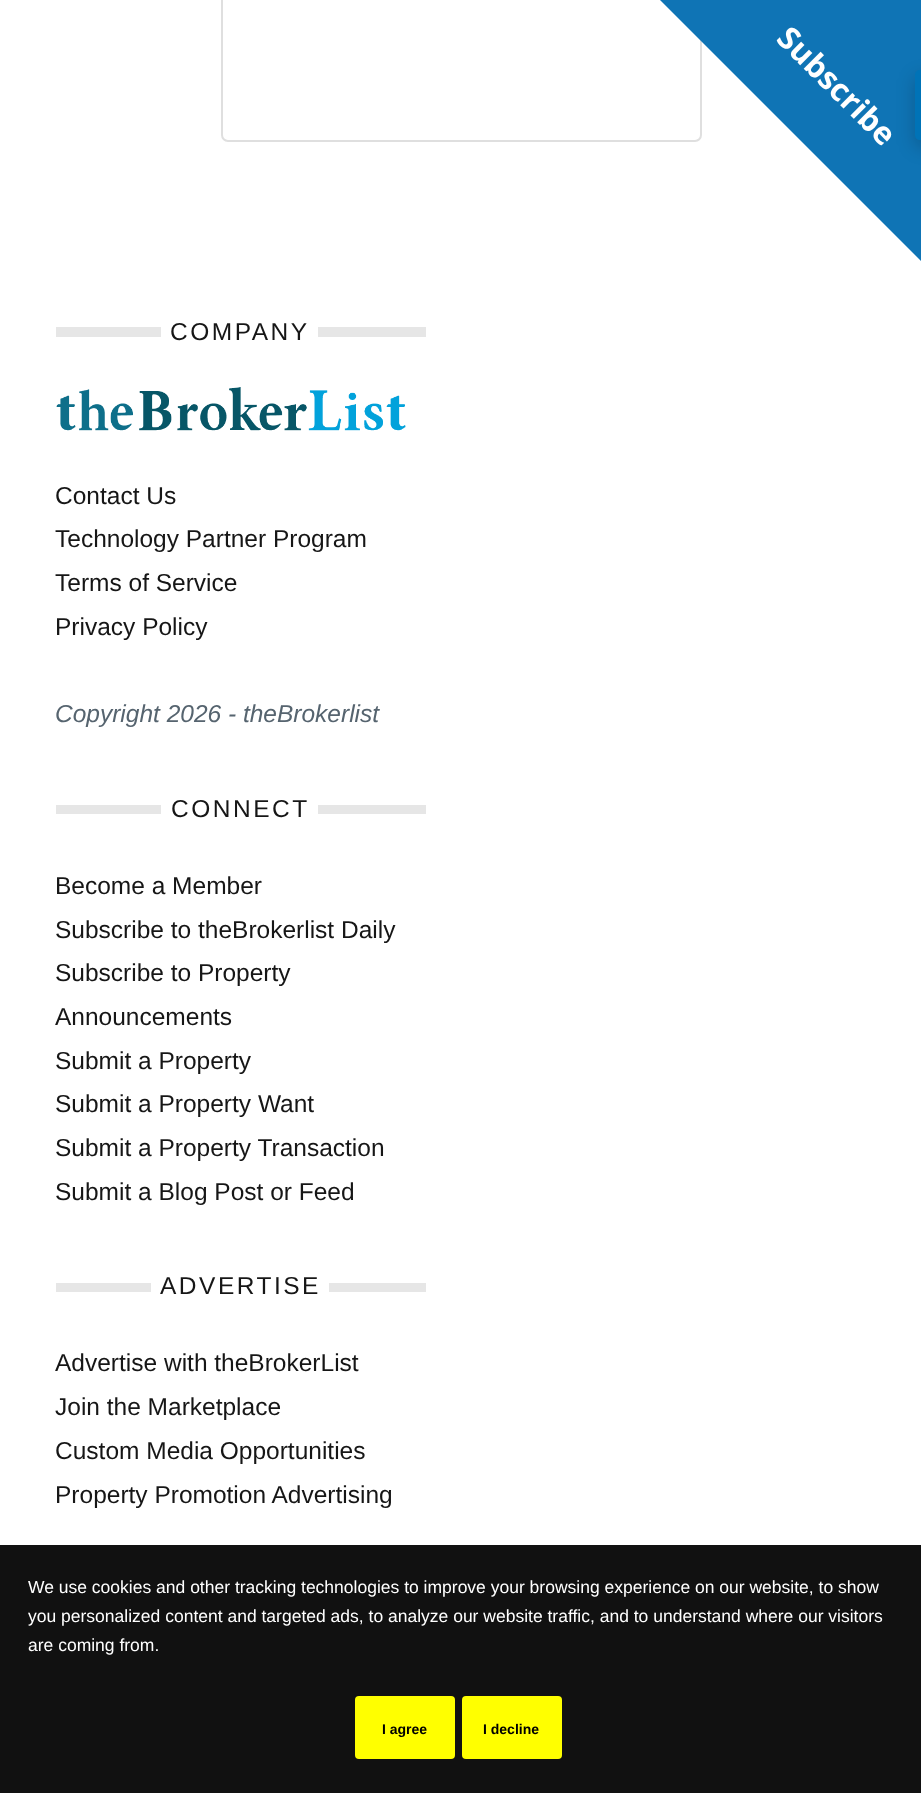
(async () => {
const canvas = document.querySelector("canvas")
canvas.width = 921
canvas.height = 1793
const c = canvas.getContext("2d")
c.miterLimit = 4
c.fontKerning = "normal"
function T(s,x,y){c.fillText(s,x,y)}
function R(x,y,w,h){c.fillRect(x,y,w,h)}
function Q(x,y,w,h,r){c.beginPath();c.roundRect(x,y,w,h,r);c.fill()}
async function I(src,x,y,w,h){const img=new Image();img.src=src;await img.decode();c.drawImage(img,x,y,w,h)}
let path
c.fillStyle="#fff"
R(0,0,921,1793)
c.beginPath()
c.roundRect(222,-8,479,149,6)
c.strokeStyle="#dfdfdf"
c.lineWidth=2
c.stroke()
c.fillStyle="#0f74b5"
path = new Path2D("M660 0h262v262z")
c.fill(path)
c.font="bold 31.5px Open Sans"
c.fillStyle="#fff"
c.save()
c.translate(775,40)
c.rotate(45 * Math.PI / 180)
c.fillText("Subscribe",0,0)
c.restore()
c.fillStyle="#00000033"
c.filter="blur(9px)"
c.beginPath()
c.roundRect(915,77,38,70,5)
c.fill()
c.filter="none"
c.fillStyle="#0073b7"
path = new Path2D("M920 70h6v70h-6c-3 0-5-2-5-5v-60c0-3 2-5 5-5z")
c.fill(path)
c.fillStyle="#e6e6e6"
R(56,327,105,10)
c.letterSpacing="2.5px"
c.font="24.5px Liberation Sans"
c.fillStyle="#161616"
T("COMPANY",170,340)
c.fillStyle="#e6e6e6"
R(318,327,108,10)
await I("1.png",56,387,350,44)
c.letterSpacing="0px"
c.fillStyle="#161616"
T("Contact Us",55,504)
T("Technology Partner Program",55,547)
T("Terms of Service",55,591)
T("Privacy Policy",55,635)
c.font="italic 24.5px Liberation Sans"
c.fillStyle="#56646f"
T("Copyright 2026 - theBrokerlist",55,722)
c.fillStyle="#e6e6e6"
R(56,805,105,9)
c.letterSpacing="2.5px"
c.font="24.5px Liberation Sans"
c.fillStyle="#161616"
T("CONNECT",171,817)
c.fillStyle="#e6e6e6"
R(318,805,108,9)
c.letterSpacing="0px"
c.fillStyle="#161616"
T("Become a Member",55,894)
T("Subscribe to theBrokerlist Daily",55,938)
T("Subscribe to Property",55,981)
T("Announcements",55,1025)
T("Submit a Property",55,1069)
T("Submit a Property Want",55,1112)
T("Submit a Property Transaction",55,1156)
T("Submit a Blog Post or Feed",55,1200)
c.fillStyle="#e6e6e6"
R(56,1283,95,9)
c.letterSpacing="2.5px"
c.fillStyle="#161616"
T("ADVERTISE",160,1294)
c.fillStyle="#e6e6e6"
R(329,1283,97,9)
c.letterSpacing="0px"
c.fillStyle="#161616"
T("Advertise with theBrokerList",55,1371)
T("Join the Marketplace",55,1415)
T("Custom Media Opportunities",55,1459)
T("Property Promotion Advertising",55,1503)
c.fillStyle="#111"
R(0,1545,921,248)
c.font="17.5px Liberation Sans"
c.fillStyle="#fff"
T("We use cookies and other tracking technologies to improve your browsing experience on our website, to show",28,1593)
T("you personalized content and targeted ads, to analyze our website traffic, and to understand where our visitors",28,1622)
T("are coming from.",28,1651)
c.fillStyle="#ff0"
Q(355,1696,100,63,4)
c.font="bold 14px Liberation Sans"
c.fillStyle="#000"
T("I agree",382,1734)
c.fillStyle="#ff0"
Q(462,1696,100,63,4)
c.fillStyle="#000"
T("I decline",483,1734)
})()
